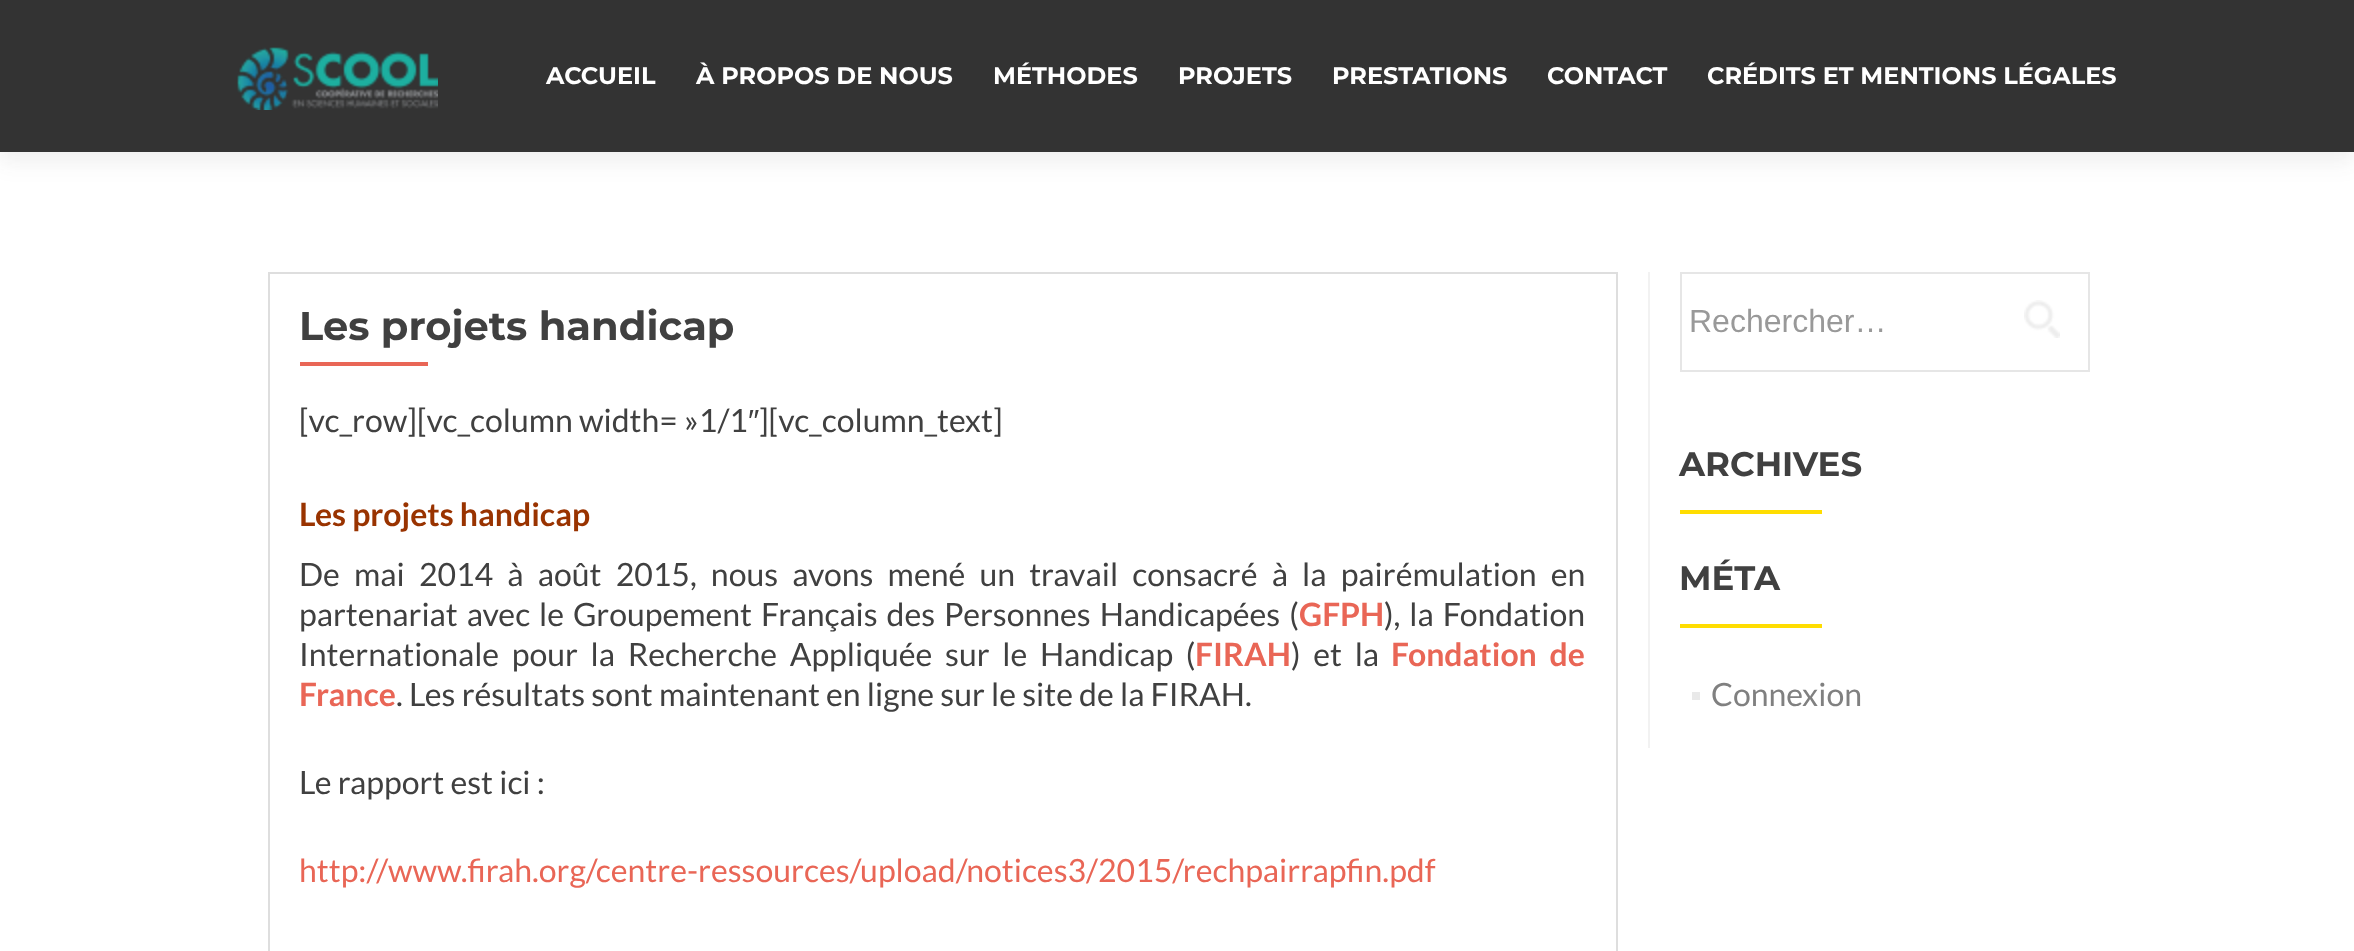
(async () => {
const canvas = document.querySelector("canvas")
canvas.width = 2354
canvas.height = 951
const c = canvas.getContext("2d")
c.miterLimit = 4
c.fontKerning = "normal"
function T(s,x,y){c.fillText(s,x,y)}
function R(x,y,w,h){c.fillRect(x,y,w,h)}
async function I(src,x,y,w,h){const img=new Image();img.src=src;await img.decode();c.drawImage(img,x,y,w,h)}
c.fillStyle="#fff"
R(0,0,2354,951)
c.fillStyle="#32323214"
c.filter="blur(11px)"
c.beginPath()
c.rect(0,10,2354,152)
c.fill()
c.filter="none"
c.fillStyle="#333"
R(0,0,2354,152)
await I("1.png",237,47,201,63)
c.font="100 24px Montserrat"
c.fillStyle="#fff"
T("ACCUEIL",546,84)
T("À PROPOS DE NOUS",696,84)
T("MÉTHODES",993,84)
T("PROJETS",1178,84)
T("PRESTATIONS",1332,84)
T("CONTACT",1547,84)
T("CRÉDITS ET MENTIONS LÉGALES",1707,84)
c.strokeStyle="#dedede"
c.lineWidth=2
c.strokeRect(269,273,1348,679)
c.font="100 40px Montserrat"
c.fillStyle="#404040"
T("Les projets handicap",299,340)
c.fillStyle="#e96656"
R(300,362,128,4)
c.font="32px Lato"
c.fillStyle="#404040"
T("[vc_row][vc_column width= »1/1",299,432)
c.font="32px Liberation Sans"
T("″",748,432)
c.font="32px Lato"
T("][vc_column_text]",759,432)
c.font="bold 32px Lato"
c.fillStyle="#930"
T("Les projets handicap",299,526)
c.wordSpacing="8px"
c.font="32px Lato"
c.fillStyle="#404040"
T("De mai 2014 à août 2015, nous avons mené un travail consacré à la pairémulation en",299,586)
c.wordSpacing="2.75px"
T("partenariat avec le Groupement Français des Personnes Handicapées (",299,626)
c.wordSpacing="0px"
c.font="bold 32px Lato"
c.fillStyle="#e96656"
T("GFPH",1299,626)
c.wordSpacing="2.75px"
c.font="32px Lato"
c.fillStyle="#404040"
T("), la Fondation",1384,626)
c.wordSpacing="6.5px"
T("Internationale pour la Recherche Appliquée sur le Handicap (",299,666)
c.wordSpacing="0px"
c.font="bold 32px Lato"
c.fillStyle="#e96656"
T("FIRAH",1195,666)
c.wordSpacing="6.5px"
c.font="32px Lato"
c.fillStyle="#404040"
T(") et la",1291,666)
c.font="bold 32px Lato"
c.fillStyle="#e96656"
T("Fondation de",1391,666)
c.wordSpacing="0px"
T("France",299,706)
c.font="32px Lato"
c.fillStyle="#404040"
T(". Les résultats sont maintenant en ligne sur le site de la FIRAH.",396,706)
T("Le rapport est ici :",299,794)
c.fillStyle="#e96656"
T("http://www.firah.org/centre-ressources/upload/notices3/2015/rechpairrapfin.pdf",299,882)
c.fillStyle="#f2f2f2"
R(1648,272,2,476)
c.strokeStyle="#e6e6e6"
c.strokeRect(1681,273,408,98)
c.font="32px Liberation Sans"
c.fillStyle="#999"
T("Rechercher…",1689,332)
await I("2.png",2024,300,36,38)
c.font="100 34px Montserrat"
c.fillStyle="#404040"
T("ARCHIVES",1679,476)
c.fillStyle="#fd0"
R(1680,510,142,4)
c.fillStyle="#404040"
T("MÉTA",1679,590)
c.fillStyle="#fd0"
R(1680,624,142,4)
c.fillStyle="#e9e9e9"
R(1692,692,8,8)
c.font="32px Lato"
c.fillStyle="#808080"
T("Connexion",1711,706)
})()
